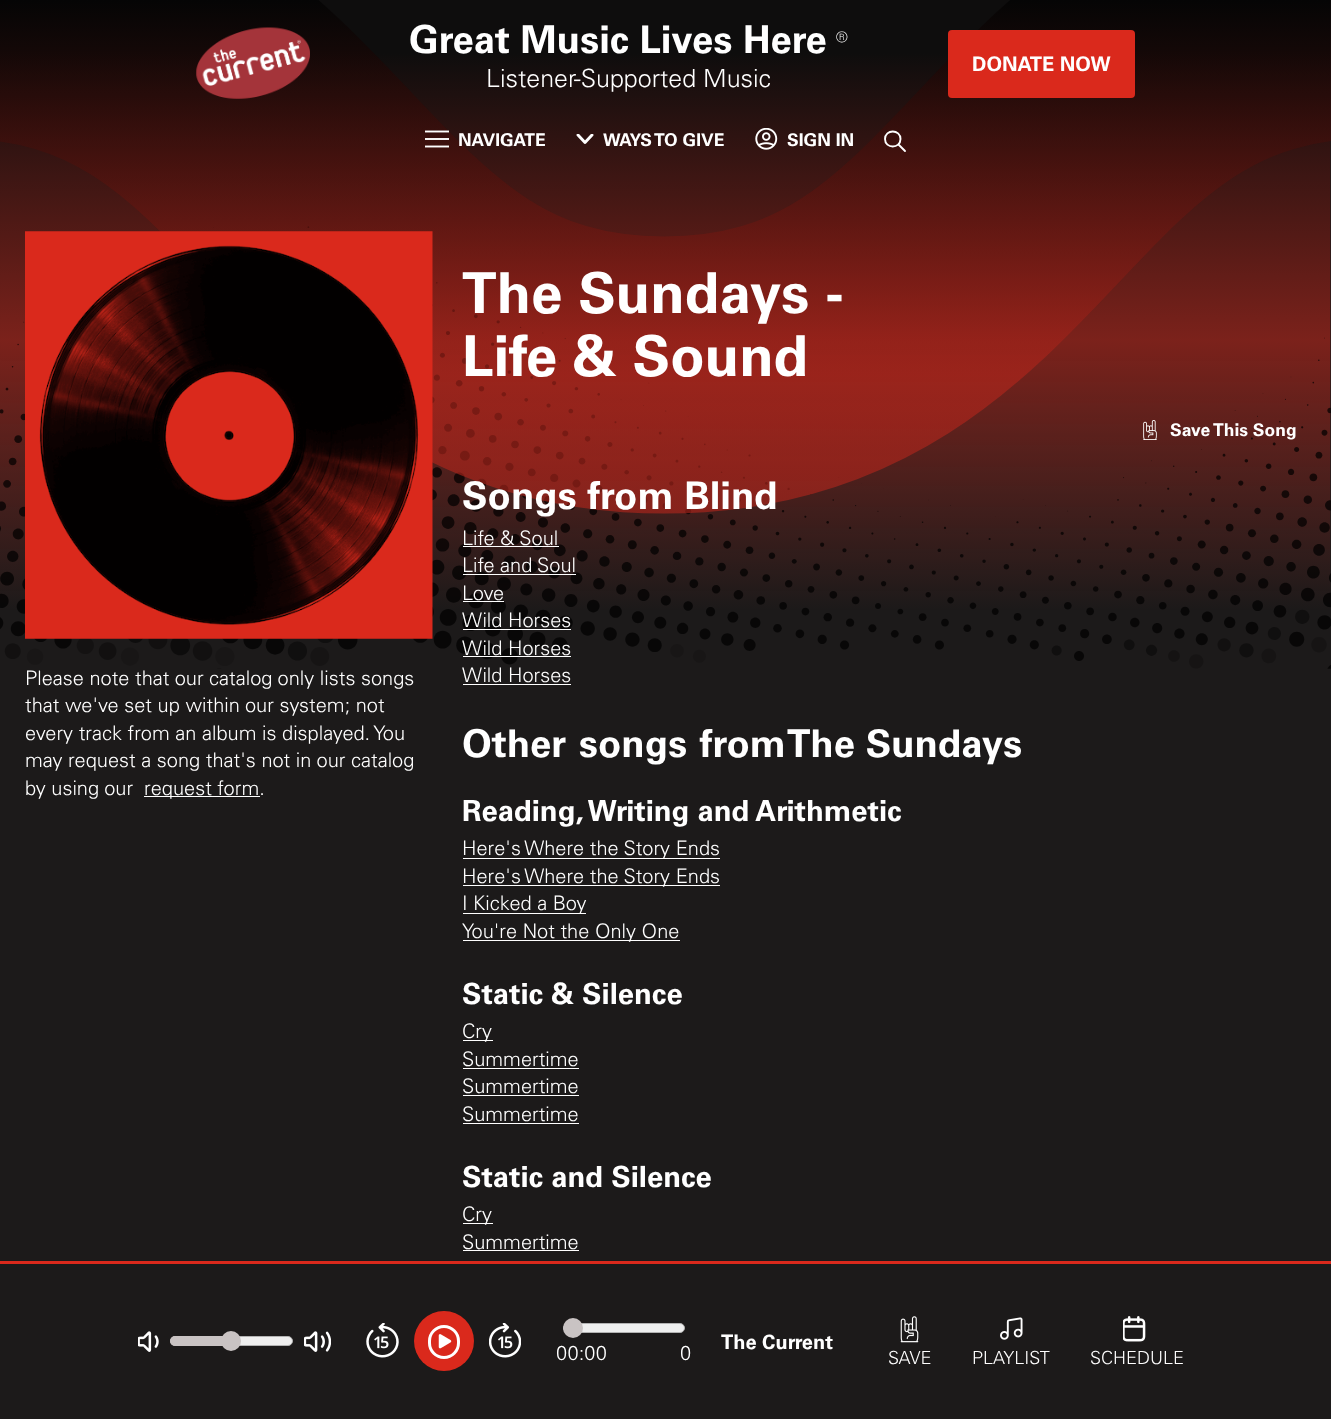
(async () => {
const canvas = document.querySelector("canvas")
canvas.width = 1331
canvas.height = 1419
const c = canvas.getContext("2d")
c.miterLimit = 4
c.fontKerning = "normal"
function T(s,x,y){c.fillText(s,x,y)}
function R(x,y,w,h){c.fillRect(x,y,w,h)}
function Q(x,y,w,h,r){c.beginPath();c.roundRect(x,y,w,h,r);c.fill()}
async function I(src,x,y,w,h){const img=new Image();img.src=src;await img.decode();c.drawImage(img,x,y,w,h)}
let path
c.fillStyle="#1c1a1a"
R(0,0,1331,1419)
await I("1.png",0,0,1331,669)
await I("2.png",196,27,114,72)
c.font="bold 38.25px Univers"
c.fillStyle="#fff"
T("Great Music Lives Here",409,53)
c.font="300 29.2px Univers"
T("®",836,53)
c.font="300 25px Univers"
T("Listener-Supported Music",486,87)
c.fillStyle="#da291c"
Q(948,30,187,68,4)
c.font="bold 20px Univers"
c.fillStyle="#fff"
T("DONATE NOW",972,71)
path = new Path2D("M425 131.5h24")
c.strokeStyle="#fff"
c.lineWidth=1.9
c.stroke(path)
c.fillStyle="#f5f3f3"
R(425,138,24,2)
path = new Path2D("M425 146.5h24")
c.stroke(path)
c.font="bold 17.5px Univers"
c.fillStyle="#fff"
T("NAVIGATE",458,146)
c.save()
c.beginPath()
c.rect(576,134,18,10)
c.clip()
path = new Path2D("M578 135l7 7.5l7-7.5")
c.lineWidth=2.9
c.lineCap="round"
c.lineJoin="round"
c.stroke(path)
c.restore()
T("WAYS TO GIVE",603,146)
await I("3.png",755,128,23,22)
T("SIGN IN",787,146)
path = new Path2D("M905 151l-6.5-6.5m2-5.5c0 10-15.5 10-15.5 0c0-10 15.5-10 15.5 0z")
c.lineCap="round"
c.lineJoin="round"
c.stroke(path)
await I("4.png",25,231,408,408)
c.font="300 20px Univers"
T("Please note that our catalog only lists songs",25,685)
T("that we've set up within our system; not",25,712)
T("every track from an album is displayed. You",25,740)
T("may request a song that's not in our catalog",25,767)
T("by using our",25,795)
R(144,796,116,1)
T("request form.",144,795)
c.font="bold 56.5px Univers"
T("The Sundays -",462,313)
T("Life & Sound",462,376)
await I("5.png",1143,420,14,20)
c.font="bold 17.5px Univers"
T("Save",1170,436)
T("This Song",1213,436)
c.font="bold 38.25px Univers"
T("Songs from Blind",462,509)
c.font="300 20px Univers"
T("Life & Soul",462,545)
R(463,546,96,1)
T("Life and Soul",462,572)
R(463,574,113,1)
T("Love",462,600)
R(463,601,41,1)
T("Wild Horses",462,627)
R(463,629,108,1)
T("Wild Horses",462,655)
R(463,656,108,1)
T("Wild Horses",462,682)
R(463,684,108,1)
c.wordSpacing="2px"
c.font="bold 38.25px Univers"
T("Other songs from",462,757)
c.wordSpacing="0px"
T("The Sundays",787,757)
c.font="bold 29.2px Univers"
T("Reading, Writing and Arithmetic",462,821)
R(463,858,257,1)
c.font="300 20px Univers"
T("Here's Where the Story Ends",462,855)
R(463,885,257,1)
T("Here's Where the Story Ends",462,883)
R(463,913,123,1)
T("I Kicked a Boy",462,910)
R(463,940,217,1)
T("You're Not the Only One",462,938)
c.font="bold 29.2px Univers"
T("Static & Silence",462,1004)
R(463,1040,30,1)
c.font="300 20px Univers"
T("Cry",462,1038)
T("Summertime",462,1066)
R(463,1068,116,1)
T("Summertime",462,1093)
R(463,1095,116,1)
T("Summertime",462,1121)
R(463,1123,116,1)
c.font="bold 29.2px Univers"
T("Static and Silence",462,1187)
R(463,1223,30,1)
c.font="300 20px Univers"
T("Cry",462,1221)
T("Summertime",462,1249)
R(463,1250,116,1)
c.fillStyle="#da291c"
R(0,1261,1331,3)
await I("6.png",138,1331,21,21)
c.fillStyle="#efefef"
c.beginPath()
c.roundRect(170.5,1336.5,122,9,4.5)
c.fill()
c.strokeStyle="#b2b2b2"
c.lineWidth=1
c.lineJoin="miter"
c.stroke()
c.fillStyle="#c9c3c3"
c.beginPath()
c.roundRect(170,1336,61,10,[5,0,0,5])
c.fill()
c.beginPath()
c.arc(231,1341,10,0,7)
c.fill()
await I("7.png",304,1331,27,21)
await I("8.png",366,1323,33,35)
c.fillStyle="#da291c"
c.beginPath()
c.arc(444,1341,30,0,7)
c.fill()
await I("9.png",438,1334,14,15)
c.beginPath()
c.roundRect(429.5,1326.5,29,31,14.5)
c.strokeStyle="#fff"
c.lineWidth=3
c.stroke()
await I("10.png",489,1323,32,35)
c.font="bold 20px Univers"
c.fillStyle="#fff"
T("The Current",721,1349)
c.fillStyle="#efefef"
c.beginPath()
c.roundRect(563.5,1323.5,121,9,4.5)
c.fill()
c.strokeStyle="#b2b2b2"
c.lineWidth=1
c.stroke()
c.fillStyle="#c9c3c3"
c.beginPath()
c.arc(573,1328,10,0,7)
c.fill()
c.font="300 20px Univers"
c.fillStyle="#fff"
T("00:00",556,1360)
T("0",680,1360)
await I("11.png",900,1316,19,27)
c.font="300 18px Univers"
T("SAVE",888,1364)
await I("12.png",1000,1317,23,23)
T("PLAYLIST",972,1364)
await I("13.png",1123,1316,23,26)
T("SCHEDULE",1090,1364)
})()
